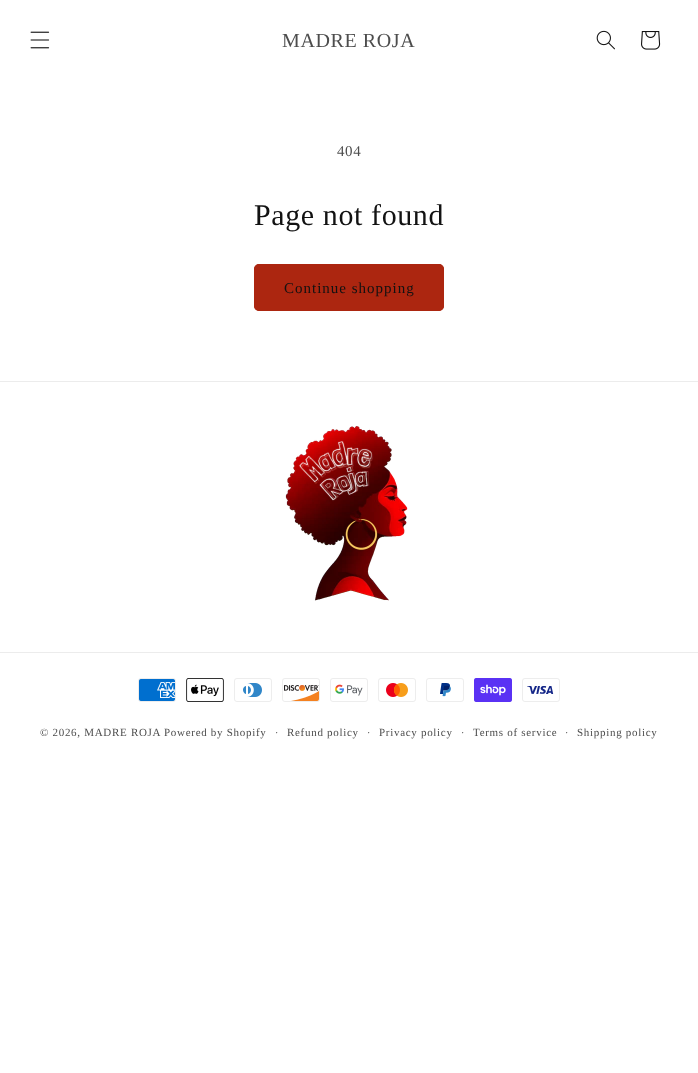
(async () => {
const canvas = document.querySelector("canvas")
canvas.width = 698
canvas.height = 1073
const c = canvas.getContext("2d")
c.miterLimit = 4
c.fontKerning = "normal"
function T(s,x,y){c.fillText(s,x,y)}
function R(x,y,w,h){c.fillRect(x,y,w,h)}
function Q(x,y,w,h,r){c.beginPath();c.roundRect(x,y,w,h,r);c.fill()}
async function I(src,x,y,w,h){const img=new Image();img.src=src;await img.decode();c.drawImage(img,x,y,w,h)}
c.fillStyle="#fff"
R(0,0,698,1073)
await I("1.png",30,31,20,18)
c.letterSpacing="0.6px"
c.font="20px Liberation Serif"
c.fillStyle="#4d4d4d"
T("MADRE ROJA",282,47)
await I("2.png",596,30,19,20)
await I("3.png",641,31,20,19)
c.font="15px Liberation Serif"
T("404",337,156)
c.font="30px Liberation Serif"
c.fillStyle="#121212"
T("Page not found",254,225)
c.fillStyle="#ac2610"
Q(254,264,190,47,5)
c.beginPath()
c.roundRect(254.5,264.5,189,46,4.5)
c.strokeStyle="#ac2610"
c.stroke()
c.letterSpacing="1px"
c.font="15px Liberation Serif"
c.fillStyle="#121212"
T("Continue shopping",284,293)
c.fillStyle="#ececec"
R(0,381,698,1)
await I("4.png",285,426,123,175)
R(0,652,698,1)
await I("5.png",138,678,38,24)
await I("6.png",186,678,38,24)
await I("7.png",234,678,38,24)
await I("8.png",282,678,38,24)
await I("9.png",330,678,38,24)
await I("10.png",378,678,38,24)
await I("11.png",426,678,38,24)
await I("12.png",474,678,38,24)
await I("13.png",522,678,38,24)
c.letterSpacing="0.7px"
c.font="11px Liberation Serif"
c.fillStyle="#4d4d4d"
T("© 2026, MADRE ROJA Powered by Shopify",40,736)
c.font="10px Liberation Serif"
T("·",275,736)
c.font="11px Liberation Serif"
T("Refund policy",287,736)
c.font="10px Liberation Serif"
T("·",367,736)
c.font="11px Liberation Serif"
T("Privacy policy",379,736)
c.font="10px Liberation Serif"
T("·",461,736)
c.font="11px Liberation Serif"
T("Terms of service",473,736)
c.font="10px Liberation Serif"
T("·",565,736)
c.font="11px Liberation Serif"
T("Shipping policy",577,736)
})()
